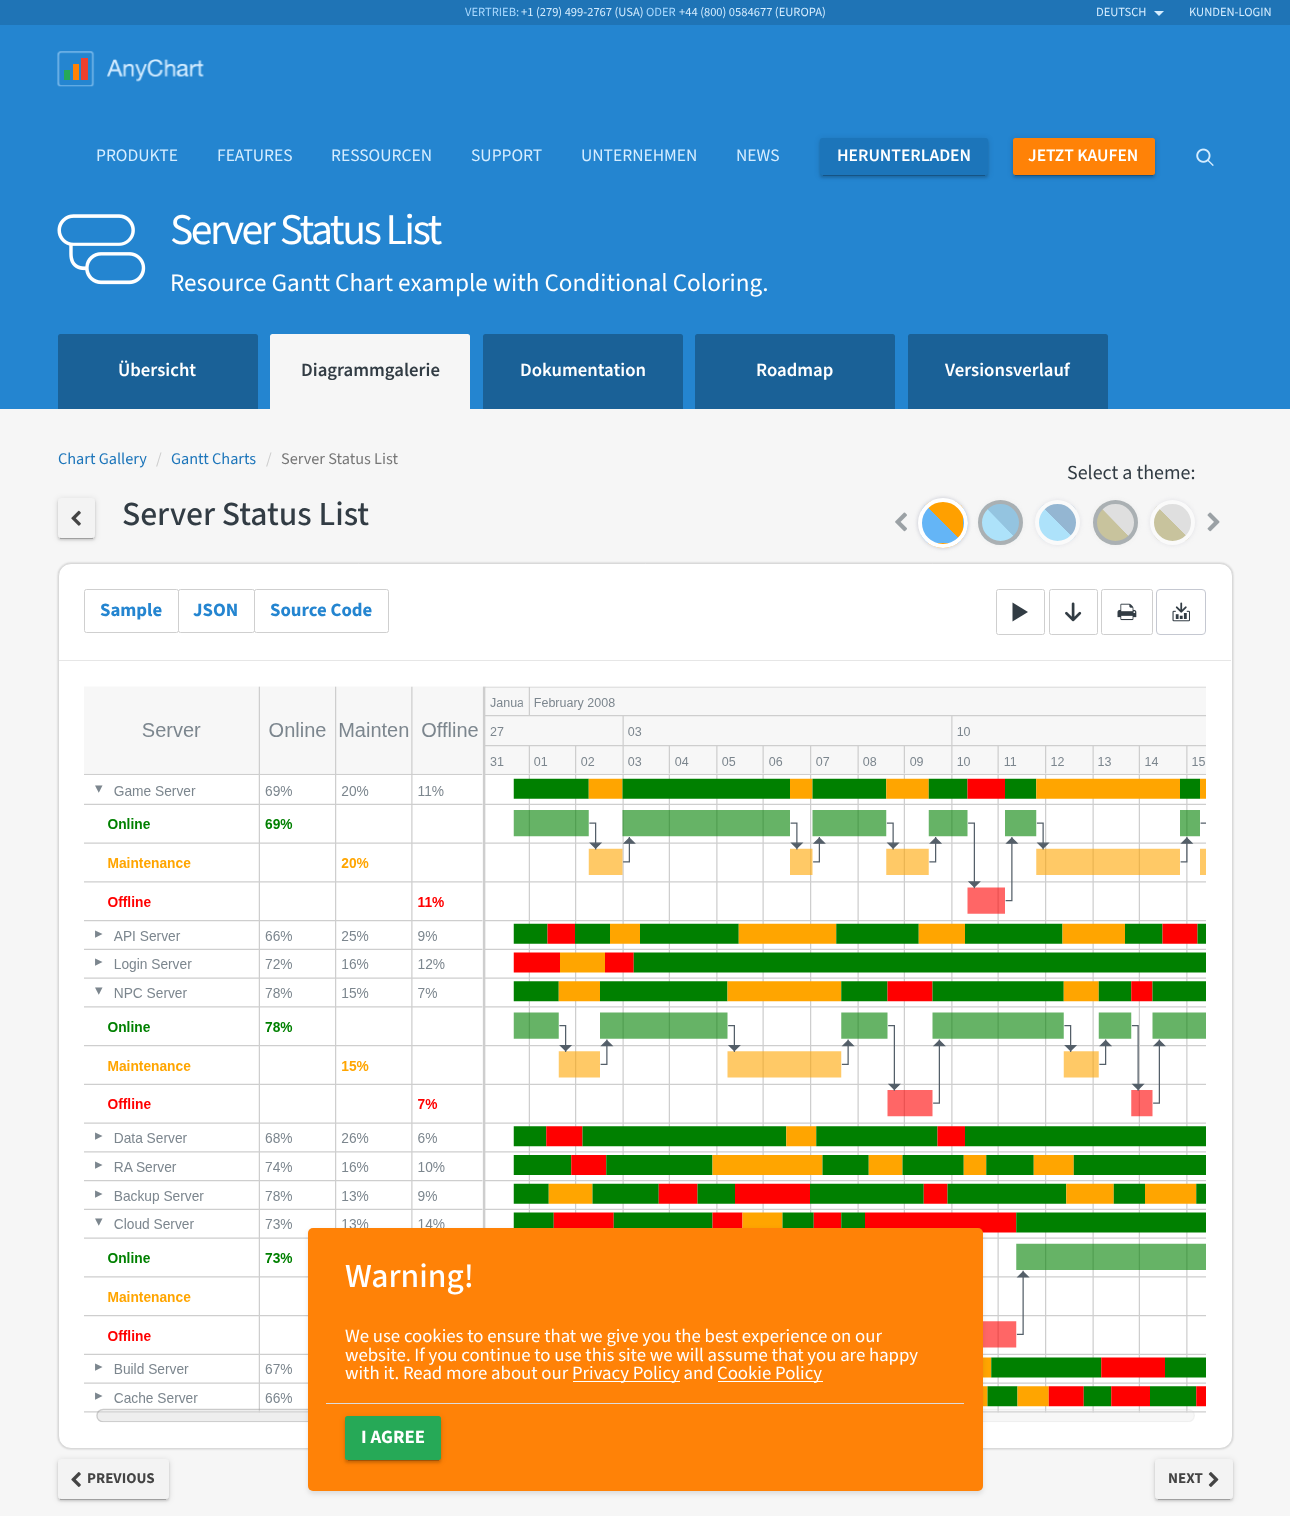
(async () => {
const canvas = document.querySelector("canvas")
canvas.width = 1290
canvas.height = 1516
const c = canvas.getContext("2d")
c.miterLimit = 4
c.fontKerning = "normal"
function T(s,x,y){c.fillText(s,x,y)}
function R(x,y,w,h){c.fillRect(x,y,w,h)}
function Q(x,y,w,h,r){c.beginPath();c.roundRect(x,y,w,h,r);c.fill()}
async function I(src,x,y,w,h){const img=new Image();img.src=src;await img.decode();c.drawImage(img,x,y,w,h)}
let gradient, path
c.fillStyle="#2485d0"
R(0,0,1290,1516)
c.fillStyle="#1f74b6"
R(0,0,1290,25)
c.font="12.5px 'Source Sans 3'"
c.fillStyle="#a9d9ff"
T("VERTRIEB:",465,16)
c.fillStyle="#d5edff"
T("+1 (279) 499-2767 (USA)",521,16)
c.fillStyle="#a9d9ff"
T("ODER",646,16)
c.fillStyle="#d5edff"
T("+44 (800) 0584677 (EUROPA)",679,16)
T("DEUTSCH",1096,16)
path = new Path2D("M1154 11h10l-5 5z")
c.fill(path)
T("KUNDEN-LOGIN",1189,16)
await I("1.png",57,51,147,36)
c.fillStyle="#26a957"
R(64,70,6,10)
c.fillStyle="#ff8207"
R(73,64,6,16)
c.fillStyle="#f0402e"
R(81,58,7,22)
c.font="17.5px 'Source Sans 3'"
c.fillStyle="#d5edff"
T("PRODUKTE",96,161)
T("FEATURES",217,161)
T("RESSOURCEN",331,161)
T("SUPPORT",471,161)
T("UNTERNEHMEN",581,161)
T("NEWS",736,161)
c.fillStyle="#0000001f"
c.filter="blur(3px)"
c.beginPath()
c.roundRect(820,139,168,37,2.5)
c.fill()
c.filter="none"
c.fillStyle="#00000024"
c.filter="blur(1px)"
c.beginPath()
c.roundRect(820,140,168,38,2.5)
c.fill()
c.filter="none"
c.fillStyle="#00000033"
c.filter="blur(0.5px)"
c.beginPath()
c.rect(823,144,162,32)
c.fill()
c.filter="none"
c.fillStyle="#1c75ba"
Q(820,138,168,37,2.5)
c.font="600 17.5px 'Source Sans 3'"
c.fillStyle="#fff"
T("HERUNTERLADEN",837,161)
c.fillStyle="#0000001f"
c.filter="blur(3px)"
c.beginPath()
c.roundRect(1013,139,142,37,2.5)
c.fill()
c.filter="none"
c.fillStyle="#00000024"
c.filter="blur(1px)"
c.beginPath()
c.roundRect(1013,140,142,38,2.5)
c.fill()
c.filter="none"
c.fillStyle="#00000033"
c.filter="blur(0.5px)"
c.beginPath()
c.rect(1015,144,138,32)
c.fill()
c.filter="none"
c.fillStyle="#ff8207"
Q(1013,138,142,37,2.5)
c.fillStyle="#fff"
T("JETZT KAUFEN",1028,161)
await I("2.png",1196,148,18,18)
await I("3.png",57,214,89,71)
c.letterSpacing="-2.5px"
c.font="43.75px 'Source Sans 3'"
T("Server Status List",170,244)
c.letterSpacing="0px"
c.font="25.2px 'Source Sans 3'"
T("Resource Gantt Chart example with Conditional Coloring.",170,291)
c.fillStyle="#1a6197"
c.beginPath()
c.roundRect(58,334,200,75,[2.5,2.5,0,0])
c.fill()
c.font="600 18.75px 'Source Sans 3'"
c.fillStyle="#fff"
T("Übersicht",118,376)
c.fillStyle="#f6f6f6"
c.beginPath()
c.roundRect(270,334,200,75,[2.5,2.5,0,0])
c.fill()
c.fillStyle="#323c44"
T("Diagrammgalerie",301,376)
c.fillStyle="#1a6197"
c.beginPath()
c.roundRect(483,334,200,75,[2.5,2.5,0,0])
c.fill()
c.fillStyle="#fff"
T("Dokumentation",520,376)
c.fillStyle="#1a6197"
c.beginPath()
c.roundRect(695,334,200,75,[2.5,2.5,0,0])
c.fill()
c.fillStyle="#fff"
T("Roadmap",756,376)
c.fillStyle="#1a6197"
c.beginPath()
c.roundRect(908,334,200,75,[2.5,2.5,0,0])
c.fill()
c.fillStyle="#fff"
T("Versionsverlauf",945,376)
c.fillStyle="#f6f6f6"
R(0,409,1290,1107)
c.font="16.25px 'Source Sans 3'"
c.fillStyle="#1c75ba"
T("Chart Gallery",58,464)
c.fillStyle="#ccc"
T("/",156,464)
c.fillStyle="#1c75ba"
T("Gantt Charts",171,464)
c.fillStyle="#ccc"
T("/",266,464)
c.fillStyle="#777"
T("Server Status List",281,464)
c.fillStyle="#0000001f"
c.filter="blur(3px)"
c.beginPath()
c.roundRect(58,499,37,40,2.5)
c.fill()
c.filter="none"
c.fillStyle="#00000024"
c.filter="blur(1px)"
c.beginPath()
c.roundRect(58,500,37,40,2.5)
c.fill()
c.filter="none"
c.fillStyle="#00000033"
c.filter="blur(0.5px)"
c.beginPath()
c.rect(60,504,33,35)
c.fill()
c.filter="none"
c.fillStyle="#f3f3f3"
c.beginPath()
c.roundRect(58.5,498.5,36,39,2)
c.fill()
c.strokeStyle="#f3f3f3"
c.stroke()
await I("4.png",71,510,10,16)
c.font="500 33.75px 'Source Sans 3'"
c.fillStyle="#323c44"
T("Server Status List",122,525)
c.font="20px 'Source Sans 3'"
T("Select a theme:",1067,479)
await I("5.png",895,512,12,20)
c.fillStyle="#73799466"
c.filter="blur(2px)"
c.beginPath()
c.roundRect(918,498,50,50,25)
c.fill()
c.filter="none"
c.save()
c.beginPath()
c.roundRect(918,498,50,50,25)
c.clip()
gradient = c.createLinearGradient(922,543,963,502)
gradient.addColorStop(0,"#64b5f6")
gradient.addColorStop(.5,"#64b5f6")
gradient.addColorStop(.51,"#ffa000")
gradient.addColorStop(1,"#ffa000")
c.fillStyle = gradient
R(921,501,42,42)
gradient = c.createLinearGradient(963,543,1004,502)
gradient.addColorStop(0,"#64b5f6")
gradient.addColorStop(.5,"#64b5f6")
gradient.addColorStop(.51,"#ffa000")
gradient.addColorStop(1,"#ffa000")
c.fillStyle = gradient
R(963,501,5,42)
gradient = c.createLinearGradient(922,584,963,543)
gradient.addColorStop(0,"#64b5f6")
gradient.addColorStop(.5,"#64b5f6")
gradient.addColorStop(.51,"#ffa000")
gradient.addColorStop(1,"#ffa000")
c.fillStyle = gradient
R(921,543,42,5)
c.restore()
c.beginPath()
c.arc(943,523,23,0,7)
c.strokeStyle="#fff"
c.lineWidth=4
c.stroke()
c.fillStyle="#ececec"
c.filter="blur(2px)"
c.beginPath()
c.roundRect(978,500,45,45,22.5)
c.fill()
c.filter="none"
c.save()
c.beginPath()
c.roundRect(978,500,45,45,22.5)
c.clip()
gradient = c.createLinearGradient(981,541,1019,504)
gradient.addColorStop(0,"#ade2fa")
gradient.addColorStop(.5,"#ade2fa")
gradient.addColorStop(.51,"#94c4e0")
gradient.addColorStop(1,"#94c4e0")
c.fillStyle = gradient
R(981,504,38,37)
c.restore()
c.beginPath()
c.arc(1000.5,522.5,20.5,0,7)
c.strokeStyle="#aab0b3"
c.stroke()
c.fillStyle="#c2c4cf66"
c.filter="blur(2px)"
c.beginPath()
c.roundRect(1035,500,45,45,22.5)
c.fill()
c.filter="none"
c.save()
c.beginPath()
c.roundRect(1035,500,45,45,22.5)
c.clip()
gradient = c.createLinearGradient(1039,541,1076,504)
gradient.addColorStop(0,"#ade2fa")
gradient.addColorStop(.5,"#ade2fa")
gradient.addColorStop(.51,"#94b6d2")
gradient.addColorStop(1,"#94b6d2")
c.fillStyle = gradient
R(1039,504,37,37)
c.restore()
c.beginPath()
c.arc(1057.5,522.5,20.5,0,7)
c.strokeStyle="#fafafa"
c.stroke()
c.fillStyle="#ececec"
c.filter="blur(2px)"
c.beginPath()
c.roundRect(1093,500,45,45,22.5)
c.fill()
c.filter="none"
c.save()
c.beginPath()
c.roundRect(1093,500,45,45,22.5)
c.clip()
gradient = c.createLinearGradient(1096,541,1134,504)
gradient.addColorStop(0,"#c8c39d")
gradient.addColorStop(.5,"#c8c39d")
gradient.addColorStop(.51,"#dfdfdf")
gradient.addColorStop(1,"#dfdfdf")
c.fillStyle = gradient
R(1096,504,38,37)
c.restore()
c.beginPath()
c.arc(1115.5,522.5,20.5,0,7)
c.strokeStyle="#aab0b3"
c.stroke()
c.fillStyle="#c2c4cf66"
c.filter="blur(2px)"
c.beginPath()
c.roundRect(1150,500,45,45,22.5)
c.fill()
c.filter="none"
c.save()
c.beginPath()
c.roundRect(1150,500,45,45,22.5)
c.clip()
gradient = c.createLinearGradient(1154,541,1191,504)
gradient.addColorStop(0,"#c8c39d")
gradient.addColorStop(.5,"#c8c39d")
gradient.addColorStop(.51,"#dfdfdf")
gradient.addColorStop(1,"#dfdfdf")
c.fillStyle = gradient
R(1154,504,37,37)
c.restore()
c.beginPath()
c.arc(1172.5,522.5,20.5,0,7)
c.strokeStyle="#fafafa"
c.stroke()
await I("6.png",1207,512,13,20)
c.fillStyle="#00000033"
c.filter="blur(1px)"
c.beginPath()
c.roundRect(58,563,1175,886,13)
c.fill()
c.filter="none"
c.fillStyle="#fff"
c.beginPath()
c.roundRect(58.5,563.5,1174,885,12.5)
c.fill()
c.strokeStyle="#d9d9d9"
c.lineWidth=1
c.stroke()
c.beginPath()
c.roundRect(84.5,589.5,94,43,2)
c.strokeStyle="#cfcfcf"
c.stroke()
c.font="bold 18.75px 'Source Sans 3'"
c.fillStyle="#2485d0"
T("Sample",100,616)
c.fillStyle="#fff"
c.beginPath()
c.roundRect(178.5,589.5,76,43,2)
c.fill()
c.stroke()
c.fillStyle="#2485d0"
T("JSON",193,616)
c.fillStyle="#fff"
c.beginPath()
c.roundRect(254.5,589.5,134,43,2)
c.fill()
c.stroke()
c.fillStyle="#2485d0"
T("Source Code",270,616)
c.beginPath()
c.roundRect(996.5,589.5,48,45,2)
c.stroke()
c.fillStyle="#323c44"
path = new Path2D("M1012.5 602.5l15.5 9.5l-15.5 9.5z")
c.fill(path)
c.beginPath()
c.roundRect(1049.5,589.5,48,45,2)
c.stroke()
await I("7.png",1065,602,17,20)
c.beginPath()
c.roundRect(1101.5,589.5,51,45,2)
c.stroke()
await I("8.png",1117,603,20,18)
c.beginPath()
c.roundRect(1156.5,589.5,49,45,3.5)
c.strokeStyle="#c5c8d1"
c.stroke()
await I("9.png",1172,602,18,20)
c.fillStyle="#e6e6e6"
R(59,660,1172,1)
await I("10.png",84,686,1122,737)
c.fillStyle="#0000001f"
c.filter="blur(3px)"
c.beginPath()
c.roundRect(58,1460,111,40,2.5)
c.fill()
c.filter="none"
c.fillStyle="#00000024"
c.filter="blur(1px)"
c.beginPath()
c.roundRect(58,1461,111,40,2.5)
c.fill()
c.filter="none"
c.fillStyle="#00000033"
c.filter="blur(0.5px)"
c.beginPath()
c.rect(60,1465,106,35)
c.fill()
c.filter="none"
c.fillStyle="#f3f3f3"
c.beginPath()
c.roundRect(58.5,1459.5,110,39,2)
c.fill()
c.strokeStyle="#f3f3f3"
c.stroke()
await I("11.png",71,1472,10,15)
c.font="bold 15px 'Source Sans 3'"
c.fillStyle="#444"
T("PREVIOUS",87,1483)
c.fillStyle="#0000001f"
c.filter="blur(3px)"
c.beginPath()
c.roundRect(1155,1460,78,40,2.5)
c.fill()
c.filter="none"
c.fillStyle="#00000024"
c.filter="blur(1px)"
c.beginPath()
c.roundRect(1155,1461,78,40,2.5)
c.fill()
c.filter="none"
c.fillStyle="#00000033"
c.filter="blur(0.5px)"
c.beginPath()
c.rect(1158,1465,72,35)
c.fill()
c.filter="none"
c.fillStyle="#f3f3f3"
c.beginPath()
c.roundRect(1155.5,1459.5,77,39,2)
c.fill()
c.stroke()
c.fillStyle="#444"
T("NEXT",1168,1483)
await I("12.png",1208,1472,11,15)
c.fillStyle="#0000001a"
c.filter="blur(2.5px)"
c.beginPath()
c.roundRect(308,1230,675,264,5)
c.fill()
c.filter="none"
c.fillStyle="#ff8207"
Q(308,1228,675,263,5)
c.font="500 33.75px 'Source Sans 3'"
c.fillStyle="#fff"
T("Warning!",345,1287)
c.font="18.75px 'Source Sans 3'"
T("We use cookies to ensure that we give you the best experience on our",345,1342)
T("website. If you continue to use this site we will assume that you are happy",345,1361)
T("with it. Read more about our",345,1379)
R(573,1381,107,1)
T("Privacy Policy and",572,1379)
R(718,1381,105,1)
T("Cookie Policy",717,1379)
c.fillStyle="#ddd"
R(326,1403,638,1)
c.fillStyle="#0000001f"
c.filter="blur(3px)"
c.beginPath()
c.roundRect(345,1418,96,43,2.5)
c.fill()
c.filter="none"
c.fillStyle="#00000024"
c.filter="blur(1px)"
c.beginPath()
c.roundRect(345,1419,96,44,2.5)
c.fill()
c.filter="none"
c.fillStyle="#00000033"
c.filter="blur(0.5px)"
c.beginPath()
c.rect(348,1423,91,38)
c.fill()
c.filter="none"
c.fillStyle="#26a957"
Q(345,1416,96,44,2.5)
c.font="bold 18.75px 'Source Sans 3'"
c.fillStyle="#fff"
T("I AGREE",361,1443)
})()
